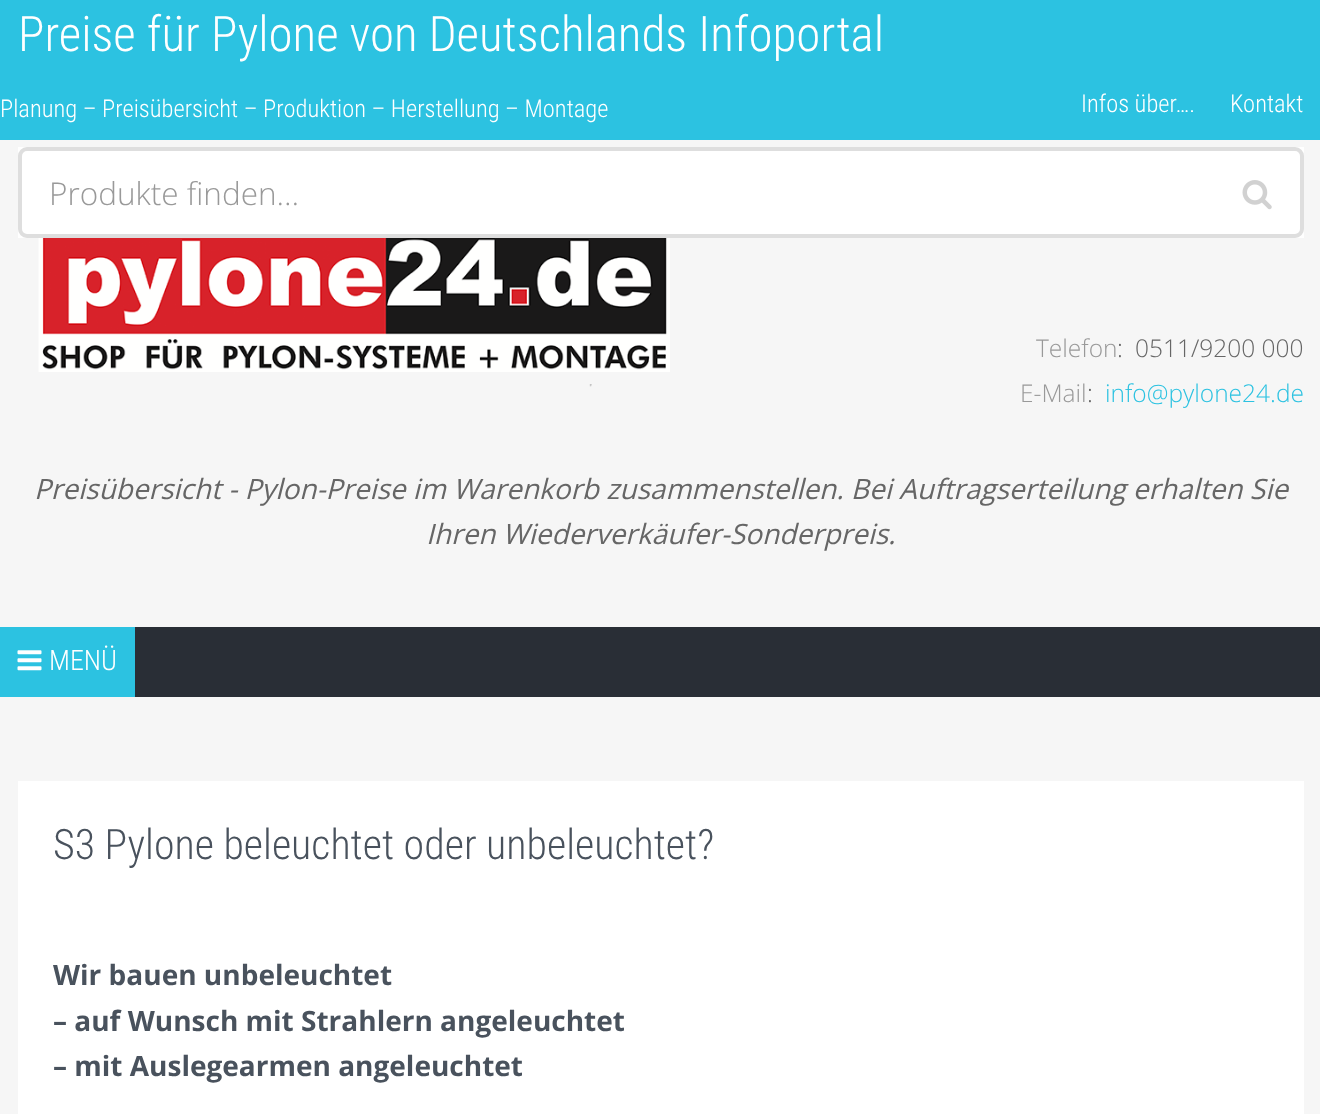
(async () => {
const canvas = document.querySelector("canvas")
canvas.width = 1320
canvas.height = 1114
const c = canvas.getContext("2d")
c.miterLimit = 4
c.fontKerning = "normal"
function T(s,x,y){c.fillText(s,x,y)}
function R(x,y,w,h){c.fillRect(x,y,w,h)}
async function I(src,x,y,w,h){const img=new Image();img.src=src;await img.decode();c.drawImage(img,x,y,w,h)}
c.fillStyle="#f6f6f6"
R(0,0,1320,1114)
c.fillStyle="#2cc2e1"
R(0,0,1320,140)
c.font="300 49px Roboto Condensed"
c.fillStyle="#fff"
T("Preise für Pylone von Deutschlands Infoportal",18,51)
c.font="300 24.5px Roboto Condensed"
T("Planung – Preisübersicht – Produktion – Herstellung – Montage",0,117)
T("Infos über….",1081,112)
T("Kontakt",1230,112)
R(18,147,1286,91)
c.beginPath()
c.roundRect(20,149,1282,87,7)
c.strokeStyle="#dedede"
c.lineWidth=4
c.stroke()
c.font="300 31.5px Open Sans"
c.fillStyle="#999"
T("Produkte finden…",49,205)
await I("1.png",1242,180,30,30)
await I("2.png",38,238,632,149)
c.font="300 24.5px Open Sans"
T("Telefon",1036,357)
c.fillStyle="#666"
T(":",1117,357)
T("0511/9200 000",1135,357)
c.fillStyle="#999"
T("E-Mail",1020,402)
c.fillStyle="#666"
T(":",1087,402)
c.fillStyle="#2cc2e1"
T("info@pylone24.de",1105,402)
c.font="italic 28px Open Sans"
c.fillStyle="#666"
T("Preisübersicht - Pylon-Preise im Warenkorb zusammenstellen. Bei Auftragserteilung erhalten Sie",34,499)
T("Ihren Wiederverkäufer-Sonderpreis.",426,544)
c.fillStyle="#292e36"
R(135,627,1185,70)
c.fillStyle="#2cc2e1"
R(0,627,135,70)
await I("3.png",17,650,25,21)
c.font="300 28px Roboto Condensed"
c.fillStyle="#fff"
T("MENÜ",49,670)
R(18,781,1286,333)
c.font="300 42px Roboto Condensed"
c.fillStyle="#49525d"
T("S3 Pylone beleuchtet oder unbeleuchtet?",53,859)
c.font="bold 28px Open Sans"
T("Wir bauen unbeleuchtet",53,985)
T("– auf Wunsch mit Strahlern angeleuchtet",53,1031)
T("– mit Auslegearmen angeleuchtet",53,1076)
})()
